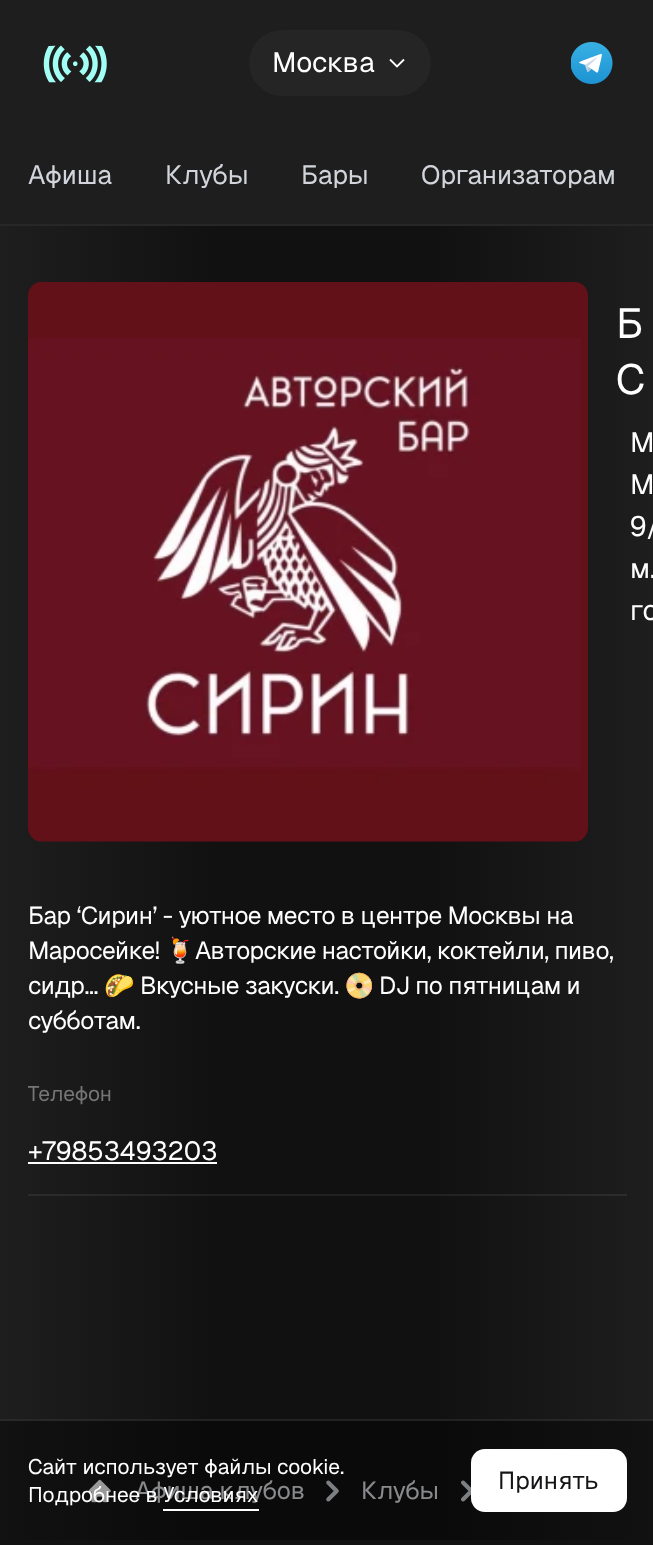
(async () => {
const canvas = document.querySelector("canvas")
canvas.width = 653
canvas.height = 1545
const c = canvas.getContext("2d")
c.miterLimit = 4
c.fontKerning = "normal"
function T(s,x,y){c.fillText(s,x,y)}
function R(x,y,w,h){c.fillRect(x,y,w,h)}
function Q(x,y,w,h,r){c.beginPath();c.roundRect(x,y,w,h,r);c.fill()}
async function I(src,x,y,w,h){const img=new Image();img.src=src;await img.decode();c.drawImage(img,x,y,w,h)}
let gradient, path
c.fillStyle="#fff"
R(0,0,653,1545)
c.fillStyle="#1e1e1e"
R(0,0,653,224)
c.fillStyle="#272727"
R(0,224,653,2)
await I("1.png",43,45,64,38)
c.fillStyle="#252525"
Q(249,30,182,66,33)
c.font="28px Geist"
c.fillStyle="#fff"
T("Москва",272,72)
path = new Path2D("M390 59.5l7 7l7-7")
c.strokeStyle="#fff"
c.lineWidth=1.8
c.stroke(path)
await I("2.png",571,42,42,42)
c.font="26.25px Geist"
c.fillStyle="#d1d5db"
T("Афиша",28,184)
T("Клубы",165,184)
T("Бары",301,184)
T("Организаторам",421,184)
gradient = c.createLinearGradient(0,883,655,883)
gradient.addColorStop(0,"#1e1e1e")
gradient.addColorStop(.33,"#111")
gradient.addColorStop(.66,"#111")
gradient.addColorStop(1,"#1e1e1e")
c.fillStyle = gradient
R(0,226,653,1314)
await I("3.png",28,281,560,561)
c.font="42px Geist"
c.fillStyle="#fff"
T("Б",616,338)
T("С",616,394)
c.font="28px Geist"
T("М",630,452)
T("М",630,494)
T("9/",630,536)
T("м.",630,578)
T("го",630,620)
c.letterSpacing="-0.4px"
c.font="24.5px Geist"
T("Бар ‘Сирин’ - уютное место в центре Москвы на",28,924)
T("Маросейке!",28,959)
c.font="24.5px Noto Color Emoji"
T("🍹",165,959)
c.font="24.5px Geist"
T("Авторские настойки, коктейли, пиво,",195,959)
T("сидр…",28,994)
c.font="24.5px Noto Color Emoji"
T("🌮",104,994)
c.font="24.5px Geist"
T("Вкусные закуски.",140,994)
c.font="24.5px Noto Color Emoji"
T("📀",344,994)
c.font="24.5px Geist"
T("DJ по пятницам и",379,994)
T("субботам.",28,1029)
c.letterSpacing="0px"
c.font="21px Geist"
c.fillStyle="#757575"
T("Телефон",28,1101)
c.fillStyle="#ffffff12"
R(28,1194,599,2)
c.font="26.25px Geist"
c.fillStyle="#fff"
T("+79853493203",28,1160)
R(28,1162,189,2)
await I("4.png",88,1479,23,24)
c.font="24.5px Geist"
c.fillStyle="#e5e7eb"
T("Афиша клубов",135,1499)
await I("5.png",326,1480,13,22)
T("Клубы",361,1499)
await I("6.png",461,1480,10,22)
c.fillStyle="#1e1e1e"
R(0,1540,653,5)
c.fillStyle="#00000066"
R(0,1419,653,126)
c.fillStyle="#ffffff1a"
R(0,1419,653,2)
c.font="21px Geist"
c.fillStyle="#fff"
T("Сайт использует файлы cookie.",28,1474)
T("Подробнее в Условиях",28,1502)
R(163,1509,96,2)
Q(471,1449,156,63,14)
c.font="24.5px Geist"
c.fillStyle="#151517"
T("Принять",498,1489)
})()
